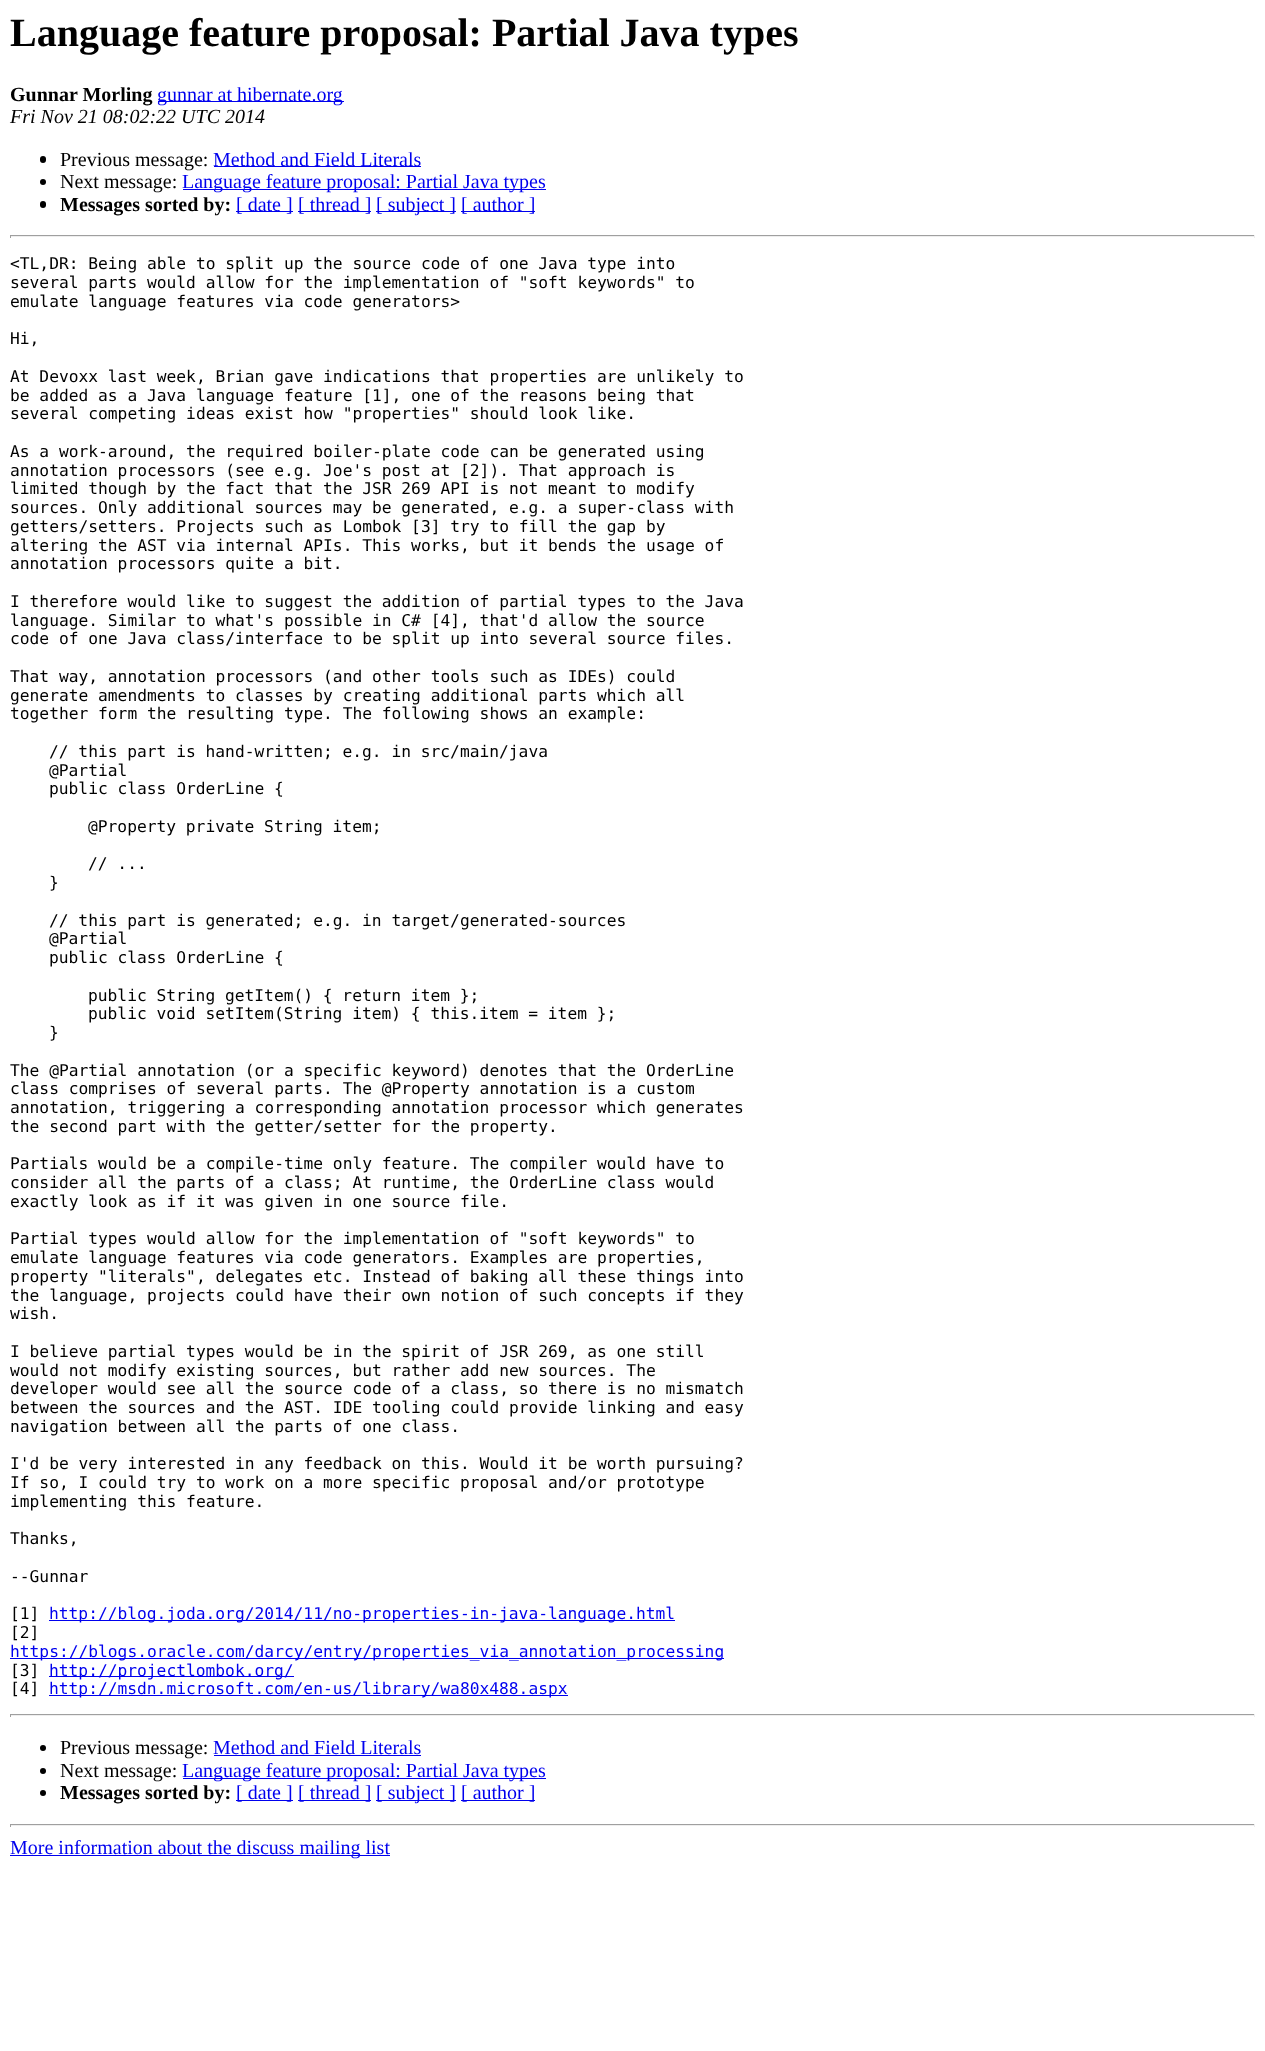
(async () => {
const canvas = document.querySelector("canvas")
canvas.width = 1265
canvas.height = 2051
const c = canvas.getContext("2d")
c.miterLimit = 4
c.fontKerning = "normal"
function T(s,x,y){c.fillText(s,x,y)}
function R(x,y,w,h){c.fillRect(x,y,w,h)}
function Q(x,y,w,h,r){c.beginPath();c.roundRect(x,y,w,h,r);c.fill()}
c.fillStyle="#fff"
R(0,0,1265,2051)
c.font="bold 40px Liberation Serif"
c.fillStyle="#000"
T("Language feature proposal: Partial Java types",10,46)
c.font="bold 20px Liberation Serif"
T("Gunnar Morling",10,101)
c.fillStyle="#00e"
R(158,101,186,1)
c.font="20px Liberation Serif"
T("gunnar at hibernate.org",157,101)
c.font="italic 20px Liberation Serif"
c.fillStyle="#000"
T("Fri Nov 21 08:02:22 UTC 2014",10,123)
Q(40,156,6,7,3)
c.font="20px Liberation Serif"
T("Previous message:",60,166)
c.fillStyle="#00e"
R(214,166,207,1)
T("Method and Field Literals",213,166)
c.fillStyle="#000"
c.beginPath()
c.arc(43,182,3,0,7)
c.fill()
T("Next message:",60,188)
c.fillStyle="#00e"
R(183,189,363,1)
T("Language feature proposal: Partial Java types",182,188)
c.fillStyle="#000"
Q(40,201,6,7,3)
c.font="bold 20px Liberation Serif"
T("Messages sorted by:",60,211)
c.fillStyle="#00e"
R(236,211,57,1)
c.font="20px Liberation Serif"
T("[ date ]",236,211)
R(298,211,73,1)
T("[ thread ]",298,211)
R(376,211,80,1)
T("[ subject ]",376,211)
R(461,211,74,1)
T("[ author ]",461,211)
c.fillStyle="#9f9f9f"
R(10,235,1245,1)
c.fillStyle="#eee"
R(1254,235,1,3)
R(10,236,1245,1)
c.fillStyle="#9f9f9f"
R(10,235,1,3)
c.font="16.25px DejaVu Sans Mono"
c.fillStyle="#000"
T("<TL,DR: Being able to split up the source code of one Java type into",10,269)
T("several parts would allow for the implementation of \"soft keywords\" to",10,288)
T("emulate language features via code generators>",10,307)
T("Hi,",10,344)
T("At Devoxx last week, Brian gave indications that properties are unlikely to",10,382)
T("be added as a Java language feature [1], one of the reasons being that",10,401)
T("several competing ideas exist how \"properties\" should look like.",10,419)
T("As a work-around, the required boiler-plate code can be generated using",10,457)
T("annotation processors (see e.g. Joe's post at [2]). That approach is",10,476)
T("limited though by the fact that the JSR 269 API is not meant to modify",10,494)
T("sources. Only additional sources may be generated, e.g. a super-class with",10,513)
T("getters/setters. Projects such as Lombok [3] try to fill the gap by",10,532)
T("altering the AST via internal APIs. This works, but it bends the usage of",10,551)
T("annotation processors quite a bit.",10,569)
T("I therefore would like to suggest the addition of partial types to the Java",10,607)
T("language. Similar to what's possible in C# [4], that'd allow the source",10,626)
T("code of one Java class/interface to be split up into several source files.",10,644)
T("That way, annotation processors (and other tools such as IDEs) could",10,682)
T("generate amendments to classes by creating additional parts which all",10,701)
T("together form the resulting type. The following shows an example:",10,719)
T("// this part is hand-written; e.g. in src/main/java",49,757)
T("@Partial",49,776)
T("public class OrderLine {",49,794)
T("@Property private String item;",88,832)
T("// ...",88,869)
T("}",49,888)
T("// this part is generated; e.g. in target/generated-sources",49,926)
T("@Partial",49,944)
T("public class OrderLine {",49,963)
T("public String getItem() { return item };",88,1001)
T("public void setItem(String item) { this.item = item };",88,1019)
T("}",49,1038)
T("The @Partial annotation (or a specific keyword) denotes that the OrderLine",10,1076)
T("class comprises of several parts. The @Property annotation is a custom",10,1094)
T("annotation, triggering a corresponding annotation processor which generates",10,1113)
T("the second part with the getter/setter for the property.",10,1132)
T("Partials would be a compile-time only feature. The compiler would have to",10,1169)
T("consider all the parts of a class; At runtime, the OrderLine class would",10,1188)
T("exactly look as if it was given in one source file.",10,1207)
T("Partial types would allow for the implementation of \"soft keywords\" to",10,1244)
T("emulate language features via code generators. Examples are properties,",10,1263)
T("property \"literals\", delegates etc. Instead of baking all these things into",10,1282)
T("the language, projects could have their own notion of such concepts if they",10,1301)
T("wish.",10,1319)
T("I believe partial types would be in the spirit of JSR 269, as one still",10,1357)
T("would not modify existing sources, but rather add new sources. The",10,1376)
T("developer would see all the source code of a class, so there is no mismatch",10,1394)
T("between the sources and the AST. IDE tooling could provide linking and easy",10,1413)
T("navigation between all the parts of one class.",10,1432)
T("I'd be very interested in any feedback on this. Would it be worth pursuing?",10,1469)
T("If so, I could try to work on a more specific proposal and/or prototype",10,1488)
T("implementing this feature.",10,1507)
T("Thanks,",10,1544)
T("--Gunnar",10,1582)
T("[1]",10,1619)
c.fillStyle="#00e"
R(49,1620,626,1)
T("http://blog.joda.org/2014/11/no-properties-in-java-language.html",49,1619)
c.fillStyle="#000"
T("[2]",10,1638)
c.fillStyle="#00e"
R(10,1658,714,1)
T("https://blogs.oracle.com/darcy/entry/properties_via_annotation_processing",10,1657)
c.fillStyle="#000"
T("[3]",10,1676)
c.fillStyle="#00e"
R(49,1676,245,1)
T("http://projectlombok.org/",49,1676)
c.fillStyle="#000"
T("[4]",10,1694)
c.fillStyle="#00e"
R(49,1695,519,1)
T("http://msdn.microsoft.com/en-us/library/wa80x488.aspx",49,1694)
c.fillStyle="#9f9f9f"
R(10,1714,1245,1)
c.fillStyle="#eee"
R(1254,1714,1,3)
R(10,1715,1245,1)
c.fillStyle="#9f9f9f"
R(10,1714,1,3)
c.fillStyle="#000"
c.beginPath()
c.arc(43,1748,3,0,7)
c.fill()
c.font="20px Liberation Serif"
T("Previous message:",60,1754)
c.fillStyle="#00e"
T("Method and Field Literals",213,1754)
R(214,1755,207,1)
c.fillStyle="#000"
c.beginPath()
c.arc(43,1771,3,0,7)
c.fill()
T("Next message:",60,1777)
c.fillStyle="#00e"
R(183,1778,363,1)
T("Language feature proposal: Partial Java types",182,1777)
c.fillStyle="#000"
c.beginPath()
c.arc(43,1793,3,0,7)
c.fill()
c.font="bold 20px Liberation Serif"
T("Messages sorted by:",60,1799)
c.fillStyle="#00e"
R(236,1800,57,1)
c.font="20px Liberation Serif"
T("[ date ]",236,1799)
R(298,1800,73,1)
T("[ thread ]",298,1799)
R(376,1800,80,1)
T("[ subject ]",376,1799)
R(461,1800,74,1)
T("[ author ]",461,1799)
c.fillStyle="#9f9f9f"
R(10,1824,1245,1)
c.fillStyle="#eee"
R(1254,1824,1,3)
R(10,1825,1245,1)
c.fillStyle="#9f9f9f"
R(10,1824,1,3)
c.fillStyle="#00e"
R(10,1855,380,1)
T("More information about the discuss mailing list",10,1854)
})()
